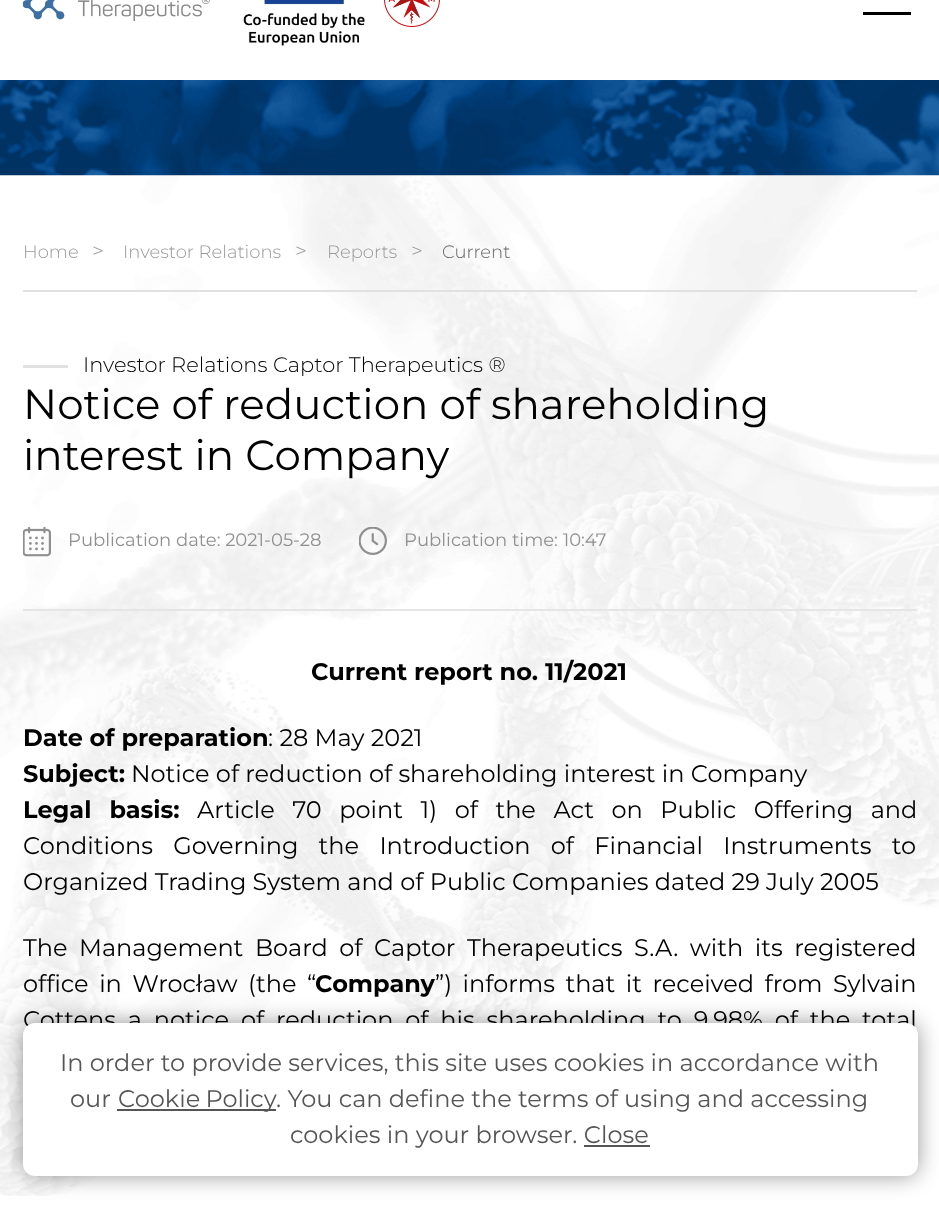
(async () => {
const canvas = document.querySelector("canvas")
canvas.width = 939
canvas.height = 1206
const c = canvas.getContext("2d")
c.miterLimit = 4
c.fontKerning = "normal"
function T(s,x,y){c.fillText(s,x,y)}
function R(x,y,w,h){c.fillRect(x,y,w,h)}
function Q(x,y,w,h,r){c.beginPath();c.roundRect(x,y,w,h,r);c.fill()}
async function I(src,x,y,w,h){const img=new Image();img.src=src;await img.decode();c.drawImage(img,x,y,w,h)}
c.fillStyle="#fff"
R(0,0,939,1206)
await I("1.png",23,0,187,21)
await I("2.png",243,0,122,46)
await I("3.png",384,0,56,27)
c.fillStyle="#000"
R(863,12,48,3)
await I("4.png",0,175,939,1021)
await I("5.png",0,80,939,96)
c.fillStyle="#e1e1e1"
R(23,290,894,2)
c.font="300 18px Montserrat"
c.fillStyle="#999"
T("Home",23,258)
c.font="300 21px Montserrat"
T(">",92,258)
c.font="300 18px Montserrat"
T("Investor Relations",123,258)
c.font="300 21px Montserrat"
T(">",295,258)
c.font="300 18px Montserrat"
T("Reports",327,258)
c.font="300 21px Montserrat"
T(">",411,258)
c.font="300 18px Montserrat"
c.fillStyle="#666"
T("Current",442,258)
c.fillStyle="#e1e1e1"
R(23,365,45,3)
c.font="300 21px Montserrat"
c.fillStyle="#000"
T("Investor Relations Captor Therapeutics ®",83,372)
c.font="42px Montserrat"
T("Notice of reduction of shareholding",23,419)
T("interest in Company",23,470)
await I("6.png",23,527,28,30)
c.font="18px Montserrat"
c.fillStyle="#8f8f8f"
T("Publication date: 2021-05-28",68,546)
await I("7.png",359,527,28,28)
T("Publication time: 10:47",404,546)
c.fillStyle="#e5e5e5"
R(23,609,894,2)
c.font="bold 24px Montserrat"
c.fillStyle="#000"
T("Current report no. 11/2021",311,680)
T("Date of preparation",23,746)
c.font="24px Montserrat"
T(": 28 May 2021",268,746)
c.font="bold 24px Montserrat"
T("Subject:",23,782)
c.font="24px Montserrat"
T("Notice of reduction of shareholding interest in Company",131,782)
c.wordSpacing="11.25px"
c.font="bold 24px Montserrat"
T("Legal basis:",23,818)
c.font="24px Montserrat"
T("Article 70 point 1) of the Act on Public Offering and",197,818)
c.wordSpacing="14px"
T("Conditions Governing the Introduction of Financial Instruments to",23,854)
c.wordSpacing="0px"
T("Organized Trading System and of Public Companies dated 29 July 2005",23,890)
c.wordSpacing="5.25px"
T("The Management Board of Captor Therapeutics S.A. with its registered",23,956)
c.wordSpacing="4.25px"
T("office in Wrocław (the “",23,992)
c.wordSpacing="0px"
c.font="bold 24px Montserrat"
T("Company",315,992)
c.wordSpacing="4.25px"
c.font="24px Montserrat"
T("”) informs that it received from Sylvain",435,992)
c.wordSpacing="5.6px"
T("Cottens a notice of reduction of his shareholding to 9.98% of the total",23,1028)
c.fillStyle="#00000066"
c.filter="blur(11px)"
c.beginPath()
c.roundRect(23,1023,895,153,12)
c.fill()
c.filter="none"
c.fillStyle="#fff"
Q(23,1023,895,153,12)
c.wordSpacing="0px"
c.fillStyle="#555"
T("In order to provide services, this site uses cookies in accordance with",60,1071)
T("our",70,1107)
R(117,1109,159,2)
c.wordSpacing="-1px"
T("Cookie Policy",118,1107)
c.wordSpacing="0px"
T(". You can define the terms of using and accessing",276,1107)
T("cookies in your browser. Close",290,1143)
R(584,1145,66,2)
})()
